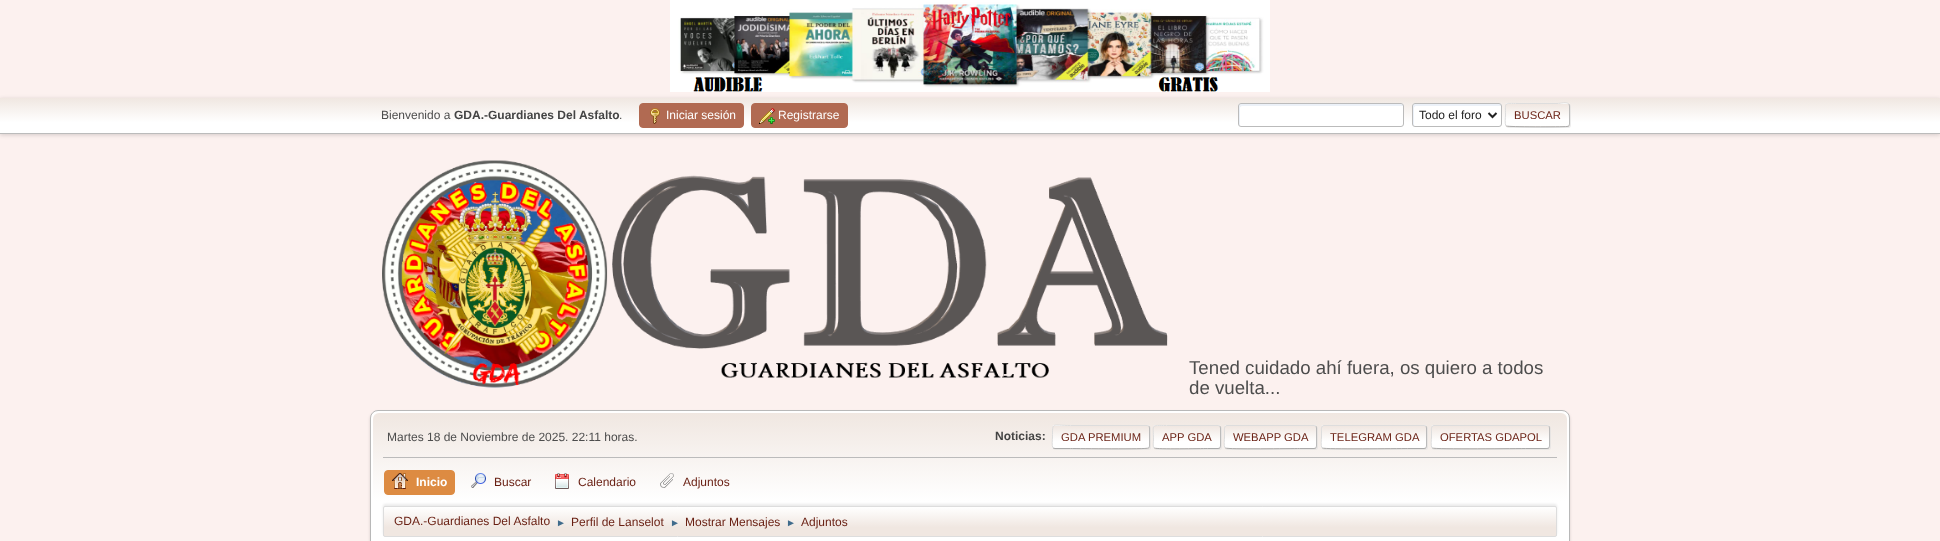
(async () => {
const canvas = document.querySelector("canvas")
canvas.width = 1940
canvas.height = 541
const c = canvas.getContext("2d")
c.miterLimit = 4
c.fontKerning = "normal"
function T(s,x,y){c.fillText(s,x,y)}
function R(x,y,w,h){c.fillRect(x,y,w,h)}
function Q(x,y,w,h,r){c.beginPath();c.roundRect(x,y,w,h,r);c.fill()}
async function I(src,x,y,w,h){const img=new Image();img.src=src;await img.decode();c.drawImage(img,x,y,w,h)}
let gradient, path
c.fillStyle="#fcf1ef"
R(0,0,1940,541)
await I("1.png",670,0,600,92)
c.fillStyle="#00000029"
c.filter="blur(2px)"
c.beginPath()
c.rect(0,99,1940,36)
c.fill()
c.filter="none"
gradient = c.createLinearGradient(970,98,970,133)
gradient.addColorStop(0,"#f0e7e1")
gradient.addColorStop(.7,"#fff")
c.fillStyle = gradient
R(0,98,1940,35)
c.fillStyle="#bbb"
R(0,133,1940,1)
c.font="12px Liberation Sans"
c.fillStyle="#4d4d4d"
T("Bienvenido a",381,119)
c.font="bold 12px Liberation Sans"
c.fillStyle="#444"
T("GDA.-Guardianes Del Asfalto",454,119)
c.font="12px Liberation Sans"
c.fillStyle="#4d4d4d"
T(".",619,119)
c.fillStyle="#b16a52"
c.beginPath()
c.roundRect(639.5,103.5,104,24,3.5)
c.fill()
c.strokeStyle="#b16a52"
c.stroke()
await I("2.png",650,108,10,16)
c.fillStyle="#fff"
T("Iniciar sesión",666,119)
c.fillStyle="#b16a52"
c.beginPath()
c.roundRect(751.5,103.5,96,24,3.5)
c.fill()
c.stroke()
await I("3.png",759,108,16,16)
c.fillStyle="#fff"
T("Registrarse",778,119)
Q(1238,103,166,24,3)
c.fillStyle="#ecf1f8"
path = new Path2D("M1242 106h161v-1l-2-1h-160c-1 0-2 1-2 2c0 3-1 19 1 20v-18c0-1 1-2 2-2z")
c.fill(path)
c.beginPath()
c.roundRect(1238.5,103.5,165,23,2.5)
c.strokeStyle="#bbb"
c.stroke()
c.fillStyle="#fff"
Q(1412,103,90,24,3)
c.fillStyle="#ecf1f8"
path = new Path2D("M1416 106h85c0-5-12-2-16-2h-56c-18 0-16-4-16 11c0 2-1 10 1 11v-18c0-1 1-2 2-2z")
c.fill(path)
c.beginPath()
c.roundRect(1412.5,103.5,89,23,2.5)
c.stroke()
path = new Path2D("M1488.5 113l4 4l4-4")
c.strokeStyle="#222"
c.lineWidth=2
c.stroke(path)
c.fillStyle="#222"
T("Todo el foro",1419,119)
c.fillStyle="#dddddd91"
c.filter="blur(0.5px)"
c.beginPath()
c.roundRect(1506,104,65,24,3)
c.fill()
c.filter="none"
c.fillStyle="#fff"
Q(1505,103,65,24,3)
c.save()
c.beginPath()
c.roundRect(1505,103,65,24,3)
c.clip()
gradient = c.createLinearGradient(1538,104,1538,126)
gradient.addColorStop(0,"#f0e7e1")
gradient.addColorStop(.7,"#f0e7e100")
c.fillStyle = gradient
R(1505,104,65,15)
gradient = c.createLinearGradient(1538,126,1538,148)
gradient.addColorStop(0,"#f0e7e1")
gradient.addColorStop(.7,"#f0e7e100")
c.fillStyle = gradient
R(1505,126,65,1)
c.restore()
path = new Path2D("M1569 104c0 .5 .5 1.5 .5 2v18c0 .5-.5 1.5-.5 2")
c.strokeStyle="#bbb"
c.lineWidth=1
c.stroke(path)
path = new Path2D("M1569 126l-2 .5c-5 .5-59.5 .5-60.5-.5h-.5")
c.strokeStyle="#aaa"
c.stroke(path)
path = new Path2D("M1506 126c-1.5-2-.5-9-.5-11c0-13.5-2-11.5 12.5-11.5h39c4 0 9-2 12 .5")
c.strokeStyle="#ddd"
c.stroke(path)
c.font="11.25px Liberation Sans"
c.fillStyle="#681e11"
T("BUSCAR",1514,119)
await I("4.png",382,160,786,228)
c.font="18.7px Liberation Sans"
c.fillStyle="#4d4d4d"
T("Tened cuidado ahí fuera, os quiero a todos",1189,374)
T("de vuelta...",1189,394)
c.fillStyle="#00000024"
c.filter="blur(1.5px)"
c.beginPath()
c.roundRect(370,412,1200,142,8)
c.fill()
c.filter="none"
c.fillStyle="#fff"
c.beginPath()
c.roundRect(370.5,410.5,1199,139,7.5)
c.fill()
c.strokeStyle="#b8b8b8"
c.stroke()
gradient = c.createLinearGradient(970,413,970,539)
gradient.addColorStop(0,"#f0e7e1")
gradient.addColorStop(.7,"#fff")
c.fillStyle = gradient
c.beginPath()
c.roundRect(373,413,1194,126,[6,6,0,0])
c.fill()
c.fillStyle="#bbb"
R(383,457,1174,1)
c.font="12px Liberation Sans"
c.fillStyle="#4d4d4d"
T("Martes 18 de Noviembre de 2025. 22:11 horas.",387,441)
c.font="bold 12px Liberation Sans"
c.fillStyle="#444"
T("Noticias:",995,440)
c.fillStyle="#dddddd91"
c.filter="blur(0.5px)"
c.beginPath()
c.roundRect(1053,426,98,24,3)
c.fill()
c.filter="none"
c.fillStyle="#fff"
Q(1052,425,98,24,3)
c.save()
c.beginPath()
c.roundRect(1052,425,98,24,3)
c.clip()
gradient = c.createLinearGradient(1101,426,1101,448)
gradient.addColorStop(0,"#f0e7e1")
gradient.addColorStop(.7,"#f0e7e100")
c.fillStyle = gradient
R(1052,426,98,15)
gradient = c.createLinearGradient(1101,448,1101,470)
gradient.addColorStop(0,"#f0e7e1")
gradient.addColorStop(.7,"#f0e7e100")
c.fillStyle = gradient
R(1052,448,98,1)
c.restore()
path = new Path2D("M1149 426c0 .5 .5 1.5 .5 2v18c0 .5-.5 1.5-.5 2")
c.strokeStyle="#bbb"
c.stroke(path)
path = new Path2D("M1149 448h-.5c-2 1.5-70 .5-78 .5h-15.5l-2-.5")
c.strokeStyle="#aaa"
c.stroke(path)
path = new Path2D("M1053 448c-1.5-2-.5-9-.5-11c0-15.5-1-11.5 18-11.5h76.5l2 .5")
c.strokeStyle="#ddd"
c.stroke(path)
c.font="11.25px Liberation Sans"
c.fillStyle="#681e11"
T("GDA PREMIUM",1061,441)
c.fillStyle="#dddddd91"
c.filter="blur(0.5px)"
c.beginPath()
c.roundRect(1154,426,68,24,3)
c.fill()
c.filter="none"
c.fillStyle="#fff"
Q(1153,425,68,24,3)
c.save()
c.beginPath()
c.roundRect(1153,425,68,24,3)
c.clip()
gradient = c.createLinearGradient(1187,426,1187,448)
gradient.addColorStop(0,"#f0e7e1")
gradient.addColorStop(.7,"#f0e7e100")
c.fillStyle = gradient
R(1153,426,68,15)
gradient = c.createLinearGradient(1187,448,1187,470)
gradient.addColorStop(0,"#f0e7e1")
gradient.addColorStop(.7,"#f0e7e100")
c.fillStyle = gradient
R(1153,448,68,1)
c.restore()
path = new Path2D("M1220 426c0 .5 .5 1.5 .5 2v18c0 .5-.5 1.5-.5 2")
c.strokeStyle="#bbb"
c.stroke(path)
path = new Path2D("M1220 448l-2 .5h-10.5c-6 0-51 1-53-.5h-.5")
c.strokeStyle="#aaa"
c.stroke(path)
path = new Path2D("M1154 448c-1.5-2-.5-6-.5-8c0-16.5-3.5-14.5 13-14.5h51.5l2 .5")
c.strokeStyle="#ddd"
c.stroke(path)
c.fillStyle="#681e11"
T("APP GDA",1162,441)
c.fillStyle="#dddddd91"
c.filter="blur(0.5px)"
c.beginPath()
c.roundRect(1225,426,93,24,3)
c.fill()
c.filter="none"
c.fillStyle="#fff"
Q(1224,425,93,24,3)
c.save()
c.beginPath()
c.roundRect(1224,425,93,24,3)
c.clip()
gradient = c.createLinearGradient(1271,426,1271,448)
gradient.addColorStop(0,"#f0e7e1")
gradient.addColorStop(.7,"#f0e7e100")
c.fillStyle = gradient
R(1224,426,93,15)
gradient = c.createLinearGradient(1271,448,1271,470)
gradient.addColorStop(0,"#f0e7e1")
gradient.addColorStop(.7,"#f0e7e100")
c.fillStyle = gradient
R(1224,448,93,1)
c.restore()
path = new Path2D("M1316 426c0 .5 .5 1.5 .5 2v18c0 .5-.5 1.5-.5 2")
c.strokeStyle="#bbb"
c.stroke(path)
path = new Path2D("M1316 448l-2 .5h-14.5c-7.5 0-72 1-74-.5h-.5")
c.strokeStyle="#aaa"
c.stroke(path)
path = new Path2D("M1225 448c-1.5-2-.5-9-.5-11v-6c0-2-.5-5.5 2.5-5.5h87l2 .5")
c.strokeStyle="#ddd"
c.stroke(path)
c.fillStyle="#681e11"
T("WEBAPP GDA",1233,441)
c.fillStyle="#dddddd91"
c.filter="blur(0.5px)"
c.beginPath()
c.roundRect(1322,426,106,24,3)
c.fill()
c.filter="none"
c.fillStyle="#fff"
Q(1321,425,106,24,3)
c.save()
c.beginPath()
c.roundRect(1321,425,106,24,3)
c.clip()
gradient = c.createLinearGradient(1374,426,1374,448)
gradient.addColorStop(0,"#f0e7e1")
gradient.addColorStop(.7,"#f0e7e100")
c.fillStyle = gradient
R(1321,426,106,15)
gradient = c.createLinearGradient(1374,448,1374,470)
gradient.addColorStop(0,"#f0e7e1")
gradient.addColorStop(.7,"#f0e7e100")
c.fillStyle = gradient
R(1321,448,106,1)
c.restore()
path = new Path2D("M1426 426c0 .5 .5 1.5 .5 2v18c0 .5-.5 1.5-.5 2")
c.strokeStyle="#bbb"
c.stroke(path)
path = new Path2D("M1426 448l-2 .5h-16.5c-9 0-83 1-85-.5h-.5")
c.strokeStyle="#aaa"
c.stroke(path)
path = new Path2D("M1322 448c-1.5-2-.5-9-.5-11v-6c0-2-.5-5.5 2.5-5.5h100l2 .5")
c.strokeStyle="#ddd"
c.stroke(path)
c.fillStyle="#681e11"
T("TELEGRAM GDA",1330,441)
c.fillStyle="#dddddd91"
c.filter="blur(0.5px)"
c.beginPath()
c.roundRect(1432,426,119,24,3)
c.fill()
c.filter="none"
c.fillStyle="#fff"
Q(1431,425,119,24,3)
c.save()
c.beginPath()
c.roundRect(1431,425,119,24,3)
c.clip()
gradient = c.createLinearGradient(1491,426,1491,448)
gradient.addColorStop(0,"#f0e7e1")
gradient.addColorStop(.7,"#f0e7e100")
c.fillStyle = gradient
R(1431,426,119,15)
gradient = c.createLinearGradient(1491,448,1491,470)
gradient.addColorStop(0,"#f0e7e1")
gradient.addColorStop(.7,"#f0e7e100")
c.fillStyle = gradient
R(1431,448,119,1)
c.restore()
path = new Path2D("M1549 426c0 .5 .5 1.5 .5 2v18c0 .5-.5 1.5-.5 2")
c.strokeStyle="#bbb"
c.stroke(path)
path = new Path2D("M1549 448l-2 .5h-19c-9.5 0-93.5 1-95.5-.5h-.5")
c.strokeStyle="#aaa"
c.stroke(path)
path = new Path2D("M1432 448c-1.5-2-.5-9-.5-11v-6c0-2-.5-5.5 2.5-5.5h113l2 .5")
c.strokeStyle="#ddd"
c.stroke(path)
c.fillStyle="#681e11"
T("OFERTAS GDAPOL",1440,441)
c.fillStyle="#dd8b42"
c.beginPath()
c.roundRect(384.5,470.5,70,24,3.5)
c.fill()
c.strokeStyle="#dd8b42"
c.stroke()
await I("5.png",392,473,16,16)
c.font="bold 12px Liberation Sans"
c.fillStyle="#fff"
T("Inicio",416,486)
await I("6.png",471,473,15,15)
c.font="12px Liberation Sans"
c.fillStyle="#681e11"
T("Buscar",494,486)
await I("7.png",555,473,14,16)
T("Calendario",578,486)
await I("8.png",660,473,14,15)
T("Adjuntos",683,486)
c.fillStyle="#00000014"
c.filter="blur(1px)"
c.beginPath()
c.roundRect(383,504,1174,31,2)
c.fill()
c.filter="none"
c.save()
c.beginPath()
c.roundRect(383,506,1174,31,2)
c.clip()
gradient = c.createLinearGradient(970,507,970,536)
gradient.addColorStop(0,"#fff")
gradient.addColorStop(.7,"#f0e7e1")
c.fillStyle = gradient
R(383,507,1174,29)
c.restore()
c.beginPath()
c.roundRect(383.5,506.5,1173,30,1.5)
c.strokeStyle="#ddd"
c.stroke()
c.fillStyle="#681e11"
T("GDA.-Guardianes Del Asfalto",394,525)
c.font="10px Liberation Sans"
c.fillStyle="#3f6b8c"
T("►",556,526)
c.font="12px Liberation Sans"
c.fillStyle="#681e11"
T("Perfil de Lanselot",571,526)
c.font="10px Liberation Sans"
c.fillStyle="#3f6b8c"
T("►",670,526)
c.font="12px Liberation Sans"
c.fillStyle="#681e11"
T("Mostrar Mensajes",685,526)
c.font="10px Liberation Sans"
c.fillStyle="#3f6b8c"
T("►",786,526)
c.font="12px Liberation Sans"
c.fillStyle="#681e11"
T("Adjuntos",801,526)
})()
